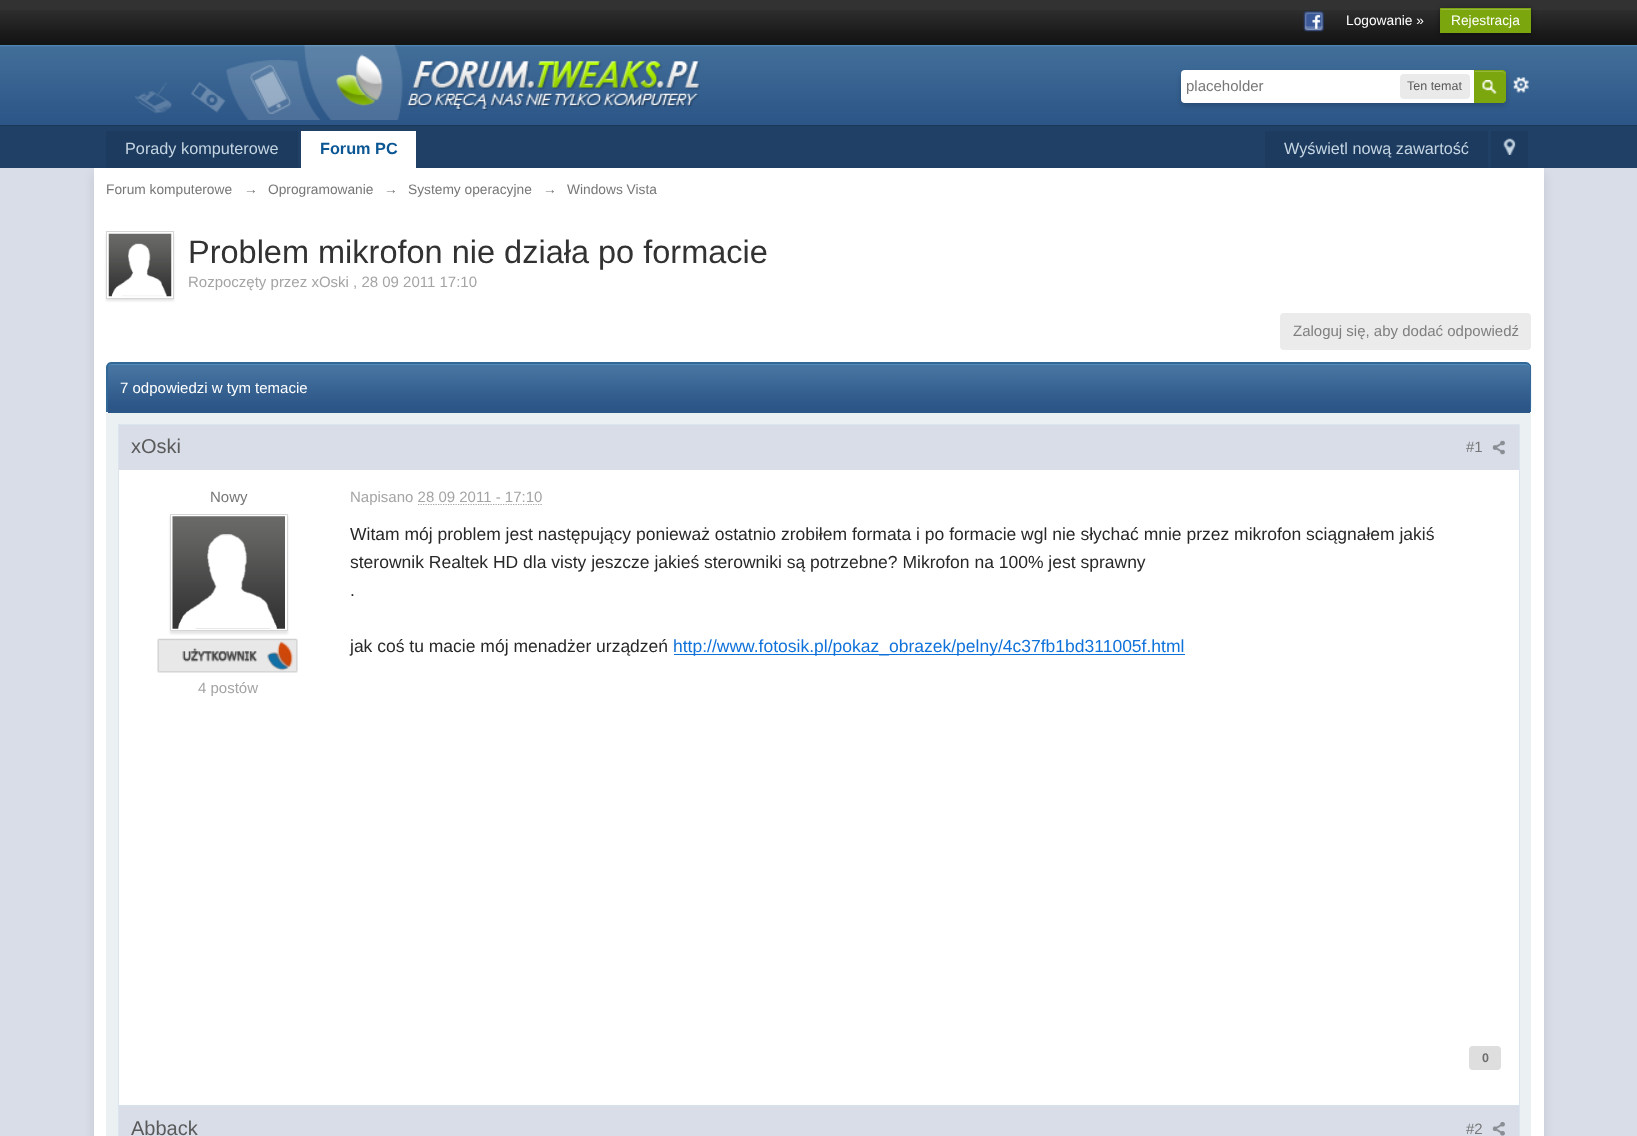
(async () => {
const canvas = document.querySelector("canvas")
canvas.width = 1637
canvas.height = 1136
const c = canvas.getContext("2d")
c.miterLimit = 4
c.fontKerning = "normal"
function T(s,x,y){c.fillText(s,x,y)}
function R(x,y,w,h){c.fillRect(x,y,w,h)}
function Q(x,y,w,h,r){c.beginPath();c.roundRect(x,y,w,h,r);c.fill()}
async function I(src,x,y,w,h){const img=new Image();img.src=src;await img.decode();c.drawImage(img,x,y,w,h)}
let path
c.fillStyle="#d8dde8"
R(0,0,1637,1136)
c.fillStyle="#323232"
R(0,0,1637,10)
await I("1.png",0,10,1637,35)
await I("2.png",1303,11,21,21)
c.font="13.75px Liberation Sans"
c.fillStyle="#fff"
T("Logowanie »",1346,25)
c.fillStyle="#00000066"
c.filter="blur(2.5px)"
c.beginPath()
c.rect(1440,9,91,25)
c.fill()
c.filter="none"
c.fillStyle="#7ba60d"
R(1440,8,91,25)
c.fillStyle="#95b83d"
R(1441,9,89,1)
c.fillStyle="#fff"
T("Rejestracja",1451,25)
await I("3.png",0,45,1637,80)
c.fillStyle="#1b3759"
R(0,125,1637,1)
await I("4.png",135,45,566,75)
await I("6.png",1513,77,16,16)
c.fillStyle="#00000033"
c.filter="blur(2.5px)"
c.beginPath()
c.roundRect(1181,73,325,32,5)
c.fill()
c.filter="none"
c.fillStyle="#fff"
c.beginPath()
c.roundRect(1181,70,325,33,[4,5,5,4])
c.fill()
c.font="15px Liberation Sans"
c.fillStyle="#777"
T("placeholder",1186,91)
c.fillStyle="#eaeaea"
Q(1400,74,70,25,4)
c.font="12.5px Liberation Sans"
c.fillStyle="#5a5a5a"
T("Ten temat",1407,90)
c.fillStyle="#7ba60d"
c.beginPath()
c.roundRect(1474,70,32,33,[0,4,4,0])
c.fill()
await I("5.png",1482,80,15,14)
c.fillStyle="#95b83d"
path = new Path2D("M1475 72h27c2 0 3 2 3 3v-1.5c0-1.5-1-2.5-2.5-2.5h-27.5z")
c.fill(path)
c.beginPath()
c.roundRect(1474.5,70.5,31,32,[0,3.5,3.5,0])
c.strokeStyle="#7ba60d"
c.stroke()
c.fillStyle="#204066"
R(0,126,1637,42)
c.fillStyle="#0000001a"
c.filter="blur(5.5px)"
c.beginPath()
c.rect(94,174,1450,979)
c.fill()
c.filter="none"
c.fillStyle="#1c3b5f"
R(106,131,192,37)
c.font="16.25px Liberation Sans"
c.fillStyle="#c5d5e2"
T("Porady komputerowe",125,154)
c.fillStyle="#fff"
R(301,131,115,37)
c.font="bold 16.25px Liberation Sans"
c.fillStyle="#0b5794"
T("Forum PC",320,154)
c.fillStyle="#1c3b5f"
R(1265,131,223,37)
c.font="16.25px Liberation Sans"
c.fillStyle="#c5d5e2"
T("Wyświetl nową zawartość",1284,154)
c.fillStyle="#1c3b5f"
R(1491,131,37,37)
await I("7.png",1503,138,13,17)
c.fillStyle="#fff"
R(94,168,1450,968)
c.font="13.75px Liberation Sans"
c.fillStyle="#777"
T("Forum komputerowe",106,194)
T("→",244,194)
T("Oprogramowanie",268,194)
T("→",384,194)
T("Systemy operacyjne",408,194)
T("→",543,194)
T("Windows Vista",567,194)
c.fillStyle="#0000001a"
c.filter="blur(1px)"
c.beginPath()
c.rect(106,234,68,67)
c.fill()
c.filter="none"
c.fillStyle="#fff"
R(107,233,66,65)
c.strokeStyle="#d5d5d5"
c.strokeRect(106.5,231.5,67,67)
await I("8.png",108,233,64,64)
c.font="32.5px Liberation Sans"
c.fillStyle="#323232"
T("Problem mikrofon nie działa po formacie",188,263)
c.font="15px Liberation Sans"
c.fillStyle="#a4a4a4"
T("Rozpoczęty przez xOski , 28 09 2011 17:10",188,287)
c.fillStyle="#ebebeb"
Q(1280,313,251,37,4)
c.fillStyle="#7f7f7f"
T("Zaloguj się, aby dodać odpowiedź",1293,336)
c.fillStyle="#2c5687"
c.beginPath()
c.roundRect(108,364,1422,49,[4,4,0,0])
c.fill()
await I("9.png",106,363,1426,45)
c.fillStyle="#528cbc"
path = new Path2D("M111 365h1415c2 0 4 2 4 4v-1c0-2-2-4-4-4h-1414c-2 0-4 2-4 4v1c0-2 1-4 3-4z")
c.fill(path)
c.fillStyle="#316897"
path = new Path2D("M111 362h1415c3 0 5 3 5 6v44h-1425v-44c0-3 2-6 5-6zm0 2h1415c2 0 4 1 4 4v44h-1422v-44c0-3 1-4 3-4z")
c.fill(path,"evenodd")
c.fillStyle="#fff"
T("7 odpowiedzi w tym temacie",120,393)
c.fillStyle="#ebf0f3"
R(106,413,1425,723)
c.fillStyle="#fff"
R(119,470,1400,635)
c.strokeStyle="#dbe4ef"
c.strokeRect(118.5,424.5,1401,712)
c.fillStyle="#d6e2eb"
R(119,1105,1400,1)
c.fillStyle="#d8dde8"
R(119,425,1400,45)
c.font="20px Liberation Sans"
c.fillStyle="#5a5a5a"
T("xOski",131,453)
c.font="15px Liberation Sans"
c.fillStyle="#777"
T("#1",1466,452)
await I("10.png",1492,440,13,15)
T("Nowy",210,502)
c.fillStyle="#0000001a"
c.filter="blur(1px)"
c.beginPath()
c.rect(170,516,118,118)
c.fill()
c.filter="none"
c.fillStyle="#fff"
c.beginPath()
c.rect(170.5,514.5,117,116)
c.fill()
c.strokeStyle="#d5d5d5"
c.stroke()
await I("11.png",172,516,113,113)
await I("12.png",157,638,141,35)
c.fillStyle="#a4a4a4"
T("4 postów",198,693)
T("Napisano 28 09 2011 - 17:10",350,502)
path = new Path2D("M418 504.5h124.5")
c.strokeStyle="#a4a4a4"
c.lineWidth=1.2
c.setLineDash([1.25,1.25])
c.stroke(path)
c.font="17.5px Liberation Sans"
c.fillStyle="#282828"
T("Witam mój problem jest następujący ponieważ ostatnio zrobiłem formata i po formacie wgl nie słychać mnie przez mikrofon sciągnałem jakiś",350,540)
T("sterownik Realtek HD dla visty jeszcze jakieś sterowniki są potrzebne? Mikrofon na 100% jest sprawny",350,568)
T(".",350,596)
T("jak coś tu macie mój menadżer urządzeń",350,652)
c.fillStyle="#0f72da"
R(674,654,511,1)
T("http://www.fotosik.pl/pokaz_obrazek/pelny/4c37fb1bd311005f.html",673,652)
c.fillStyle="#dedede"
Q(1469,1046,32,24,4)
c.font="bold 12.5px Liberation Sans"
c.fillStyle="#6e6e6e"
T("0",1482,1062)
c.fillStyle="#d8dde8"
R(119,1106,1400,30)
c.font="20px Liberation Sans"
c.fillStyle="#5a5a5a"
T("Abback",131,1135)
c.font="15px Liberation Sans"
c.fillStyle="#777"
T("#2",1466,1134)
await I("13.png",1492,1122,13,14)
})()
